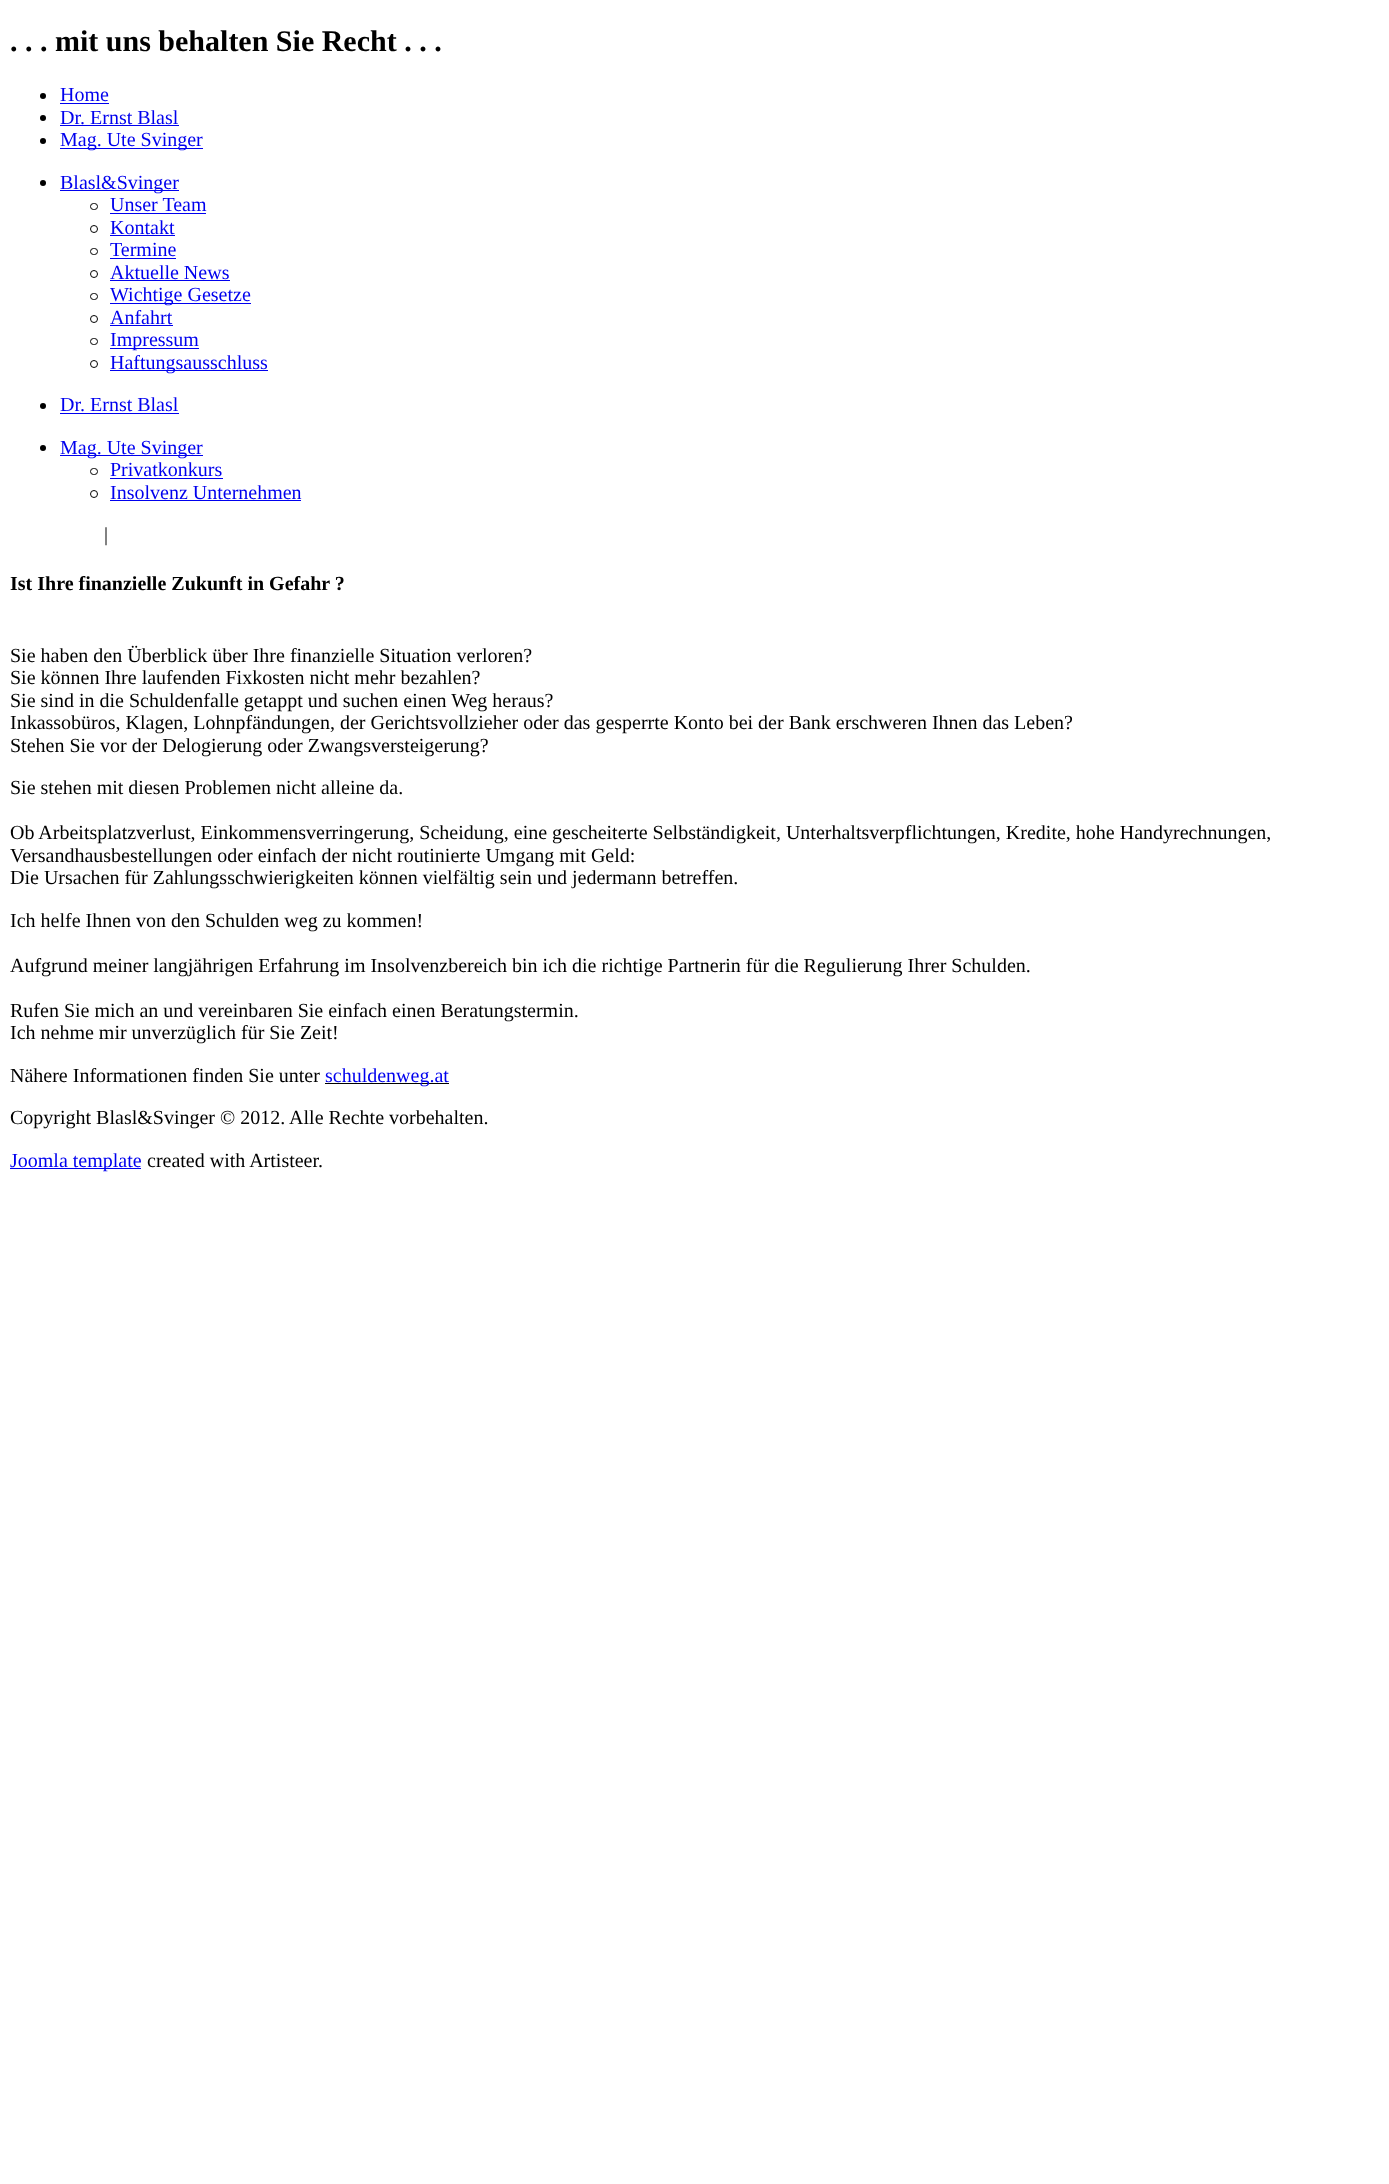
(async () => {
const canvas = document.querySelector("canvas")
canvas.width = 1389
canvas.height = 2184
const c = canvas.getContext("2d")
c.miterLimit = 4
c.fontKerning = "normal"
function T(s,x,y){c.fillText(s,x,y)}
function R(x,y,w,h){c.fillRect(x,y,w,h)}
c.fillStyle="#fff"
R(0,0,1389,2184)
c.font="bold 30px Liberation Serif"
c.fillStyle="#000"
T(". . . mit uns behalten Sie Recht . . .",10,51)
c.beginPath()
c.arc(43,96,3,0,7)
c.fill()
c.font="20px Liberation Serif"
c.fillStyle="#00e"
T("Home",60,101)
R(60,103,49,1)
c.fillStyle="#000"
c.beginPath()
c.arc(43,118,3,0,7)
c.fill()
c.fillStyle="#00e"
T("Dr. Ernst Blasl",60,124)
R(60,125,119,1)
c.fillStyle="#000"
c.beginPath()
c.arc(43,141,3,0,7)
c.fill()
c.fillStyle="#00e"
R(60,148,143,1)
T("Mag. Ute Svinger",60,146)
c.fillStyle="#000"
c.beginPath()
c.arc(43,183,3,0,7)
c.fill()
c.fillStyle="#00e"
R(60,190,119,1)
T("Blasl&Svinger",60,189)
c.beginPath()
c.roundRect(90.5,203.5,7,6,3)
c.strokeStyle="#000"
c.stroke()
T("Unser Team",110,211)
R(110,213,96,1)
c.beginPath()
c.arc(94,229,3.5,0,7)
c.stroke()
T("Kontakt",110,234)
R(110,235,65,1)
c.beginPath()
c.roundRect(90.5,248.5,7,6,3)
c.stroke()
T("Termine",110,256)
R(110,258,66,1)
c.beginPath()
c.arc(94,274,3.5,0,7)
c.stroke()
T("Aktuelle News",110,279)
R(110,280,120,1)
c.beginPath()
c.roundRect(90.5,293.5,7,6,3)
c.stroke()
R(110,303,141,1)
T("Wichtige Gesetze",110,301)
c.beginPath()
c.arc(94,319,3.5,0,7)
c.stroke()
T("Anfahrt",110,324)
R(110,325,63,1)
c.beginPath()
c.roundRect(90.5,338.5,7,6,3)
c.stroke()
R(110,348,89,1)
T("Impressum",110,346)
c.beginPath()
c.arc(94,364,3.5,0,7)
c.stroke()
R(110,370,158,1)
T("Haftungsausschluss",110,369)
c.fillStyle="#000"
c.beginPath()
c.arc(43,406,3,0,7)
c.fill()
c.fillStyle="#00e"
T("Dr. Ernst Blasl",60,411)
R(60,413,119,1)
c.fillStyle="#000"
c.beginPath()
c.arc(43,448,3,0,7)
c.fill()
c.fillStyle="#00e"
R(60,455,143,1)
T("Mag. Ute Svinger",60,454)
c.beginPath()
c.roundRect(90.5,468.5,7,6,3)
c.stroke()
T("Privatkonkurs",110,476)
R(110,478,113,1)
c.beginPath()
c.arc(94,494,3.5,0,7)
c.stroke()
T("Insolvenz Unternehmen",110,499)
R(110,500,191,1)
c.fillStyle="#000"
T("|",104,541)
c.font="bold 20px Liberation Serif"
T("Ist Ihre finanzielle Zukunft in Gefahr ?",10,590)
c.font="20px Liberation Serif"
T("Sie haben den Überblick über Ihre finanzielle Situation verloren?",10,662)
T("Sie können Ihre laufenden Fixkosten nicht mehr bezahlen?",10,684)
T("Sie sind in die Schuldenfalle getappt und suchen einen Weg heraus?",10,707)
T("Inkassobüros, Klagen, Lohnpfändungen, der Gerichtsvollzieher oder das gesperrte Konto bei der Bank erschweren Ihnen das Leben?",10,729)
T("Stehen Sie vor der Delogierung oder Zwangsversteigerung?",10,752)
T("Sie stehen mit diesen Problemen nicht alleine da.",10,794)
T("Ob Arbeitsplatzverlust, Einkommensverringerung, Scheidung, eine gescheiterte Selbständigkeit, Unterhaltsverpflichtungen, Kredite, hohe Handyrechnungen,",10,839)
T("Versandhausbestellungen oder einfach der nicht routinierte Umgang mit Geld:",10,862)
T("Die Ursachen für Zahlungsschwierigkeiten können vielfältig sein und jedermann betreffen.",10,884)
T("Ich helfe Ihnen von den Schulden weg zu kommen!",10,927)
T("Aufgrund meiner langjährigen Erfahrung im Insolvenzbereich bin ich die richtige Partnerin für die Regulierung Ihrer Schulden.",10,972)
T("Rufen Sie mich an und vereinbaren Sie einfach einen Beratungstermin.",10,1017)
T("Ich nehme mir unverzüglich für Sie Zeit!",10,1039)
T("Nähere Informationen finden Sie unter",10,1082)
R(325,1083,124,1)
c.fillStyle="#00e"
T("schuldenweg.at",325,1082)
c.fillStyle="#000"
T("Copyright Blasl&Svinger © 2012. Alle Rechte vorbehalten.",10,1124)
c.fillStyle="#00e"
R(10,1168,131,1)
T("Joomla template",10,1167)
c.fillStyle="#000"
T("created with Artisteer.",147,1167)
})()
